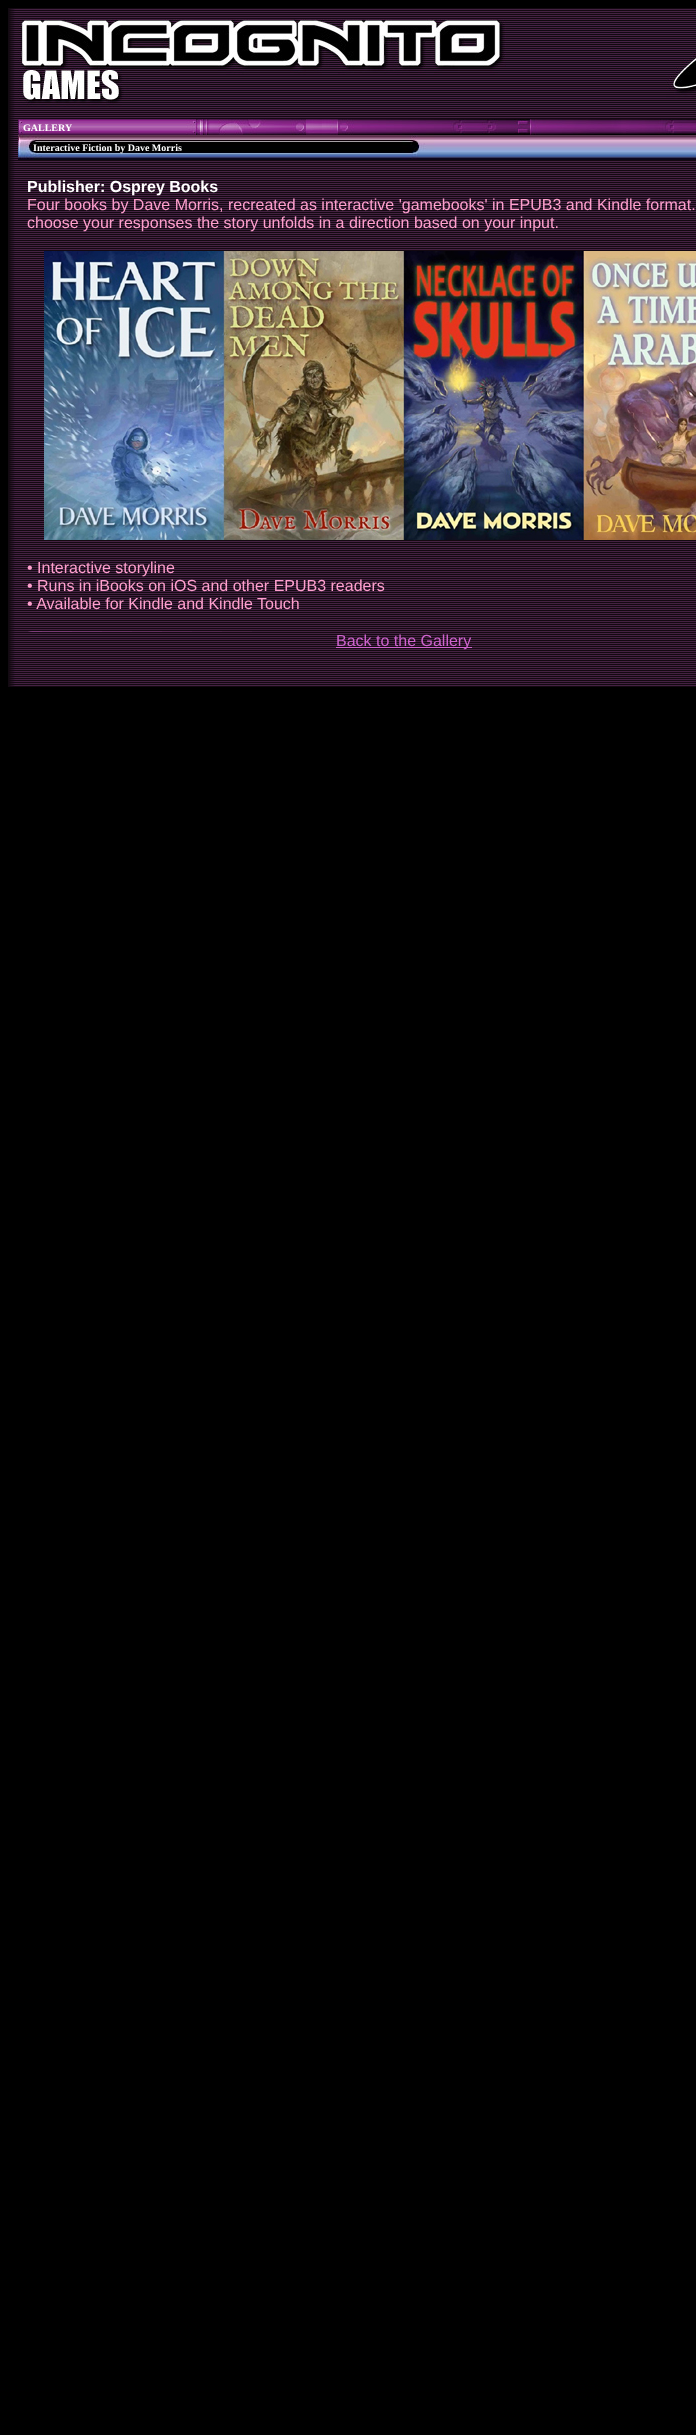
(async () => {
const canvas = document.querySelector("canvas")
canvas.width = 696
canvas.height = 2435
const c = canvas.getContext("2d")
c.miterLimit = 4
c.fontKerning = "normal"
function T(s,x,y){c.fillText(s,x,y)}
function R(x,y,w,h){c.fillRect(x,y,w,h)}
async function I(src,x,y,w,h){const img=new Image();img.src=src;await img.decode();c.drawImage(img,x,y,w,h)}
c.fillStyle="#000"
R(0,0,696,2435)
await I("1.png",8,8,688,679)
await I("2.png",18,19,678,88)
await I("3.png",18,119,678,16)
c.font="bold 10px Liberation Serif"
c.fillStyle="#fff"
T("GALLERY",23,131)
await I("4.png",18,135,678,25)
T("Interactive Fiction by Dave Morris",33,151)
c.font="bold 16px Liberation Sans"
T("Publisher: Osprey Books",27,192)
c.font="16px Liberation Sans"
c.fillStyle="#fea0cd"
T("Four books by Dave Morris, recreated as interactive 'gamebooks' in EPUB3 and Kindle format.",27,210)
T("choose your responses the story unfolds in a direction based on your input.",27,228)
await I("5.png",44,251,652,289)
T("• Interactive storyline",27,573)
T("• Runs in iBooks on iOS and other EPUB3 readers",27,591)
T("• Available for Kindle and Kindle Touch",27,609)
await I("6.png",28,631,224,1)
c.fillStyle="#ce64ce"
R(336,647,136,1)
T("Back to the Gallery",336,646)
})()
